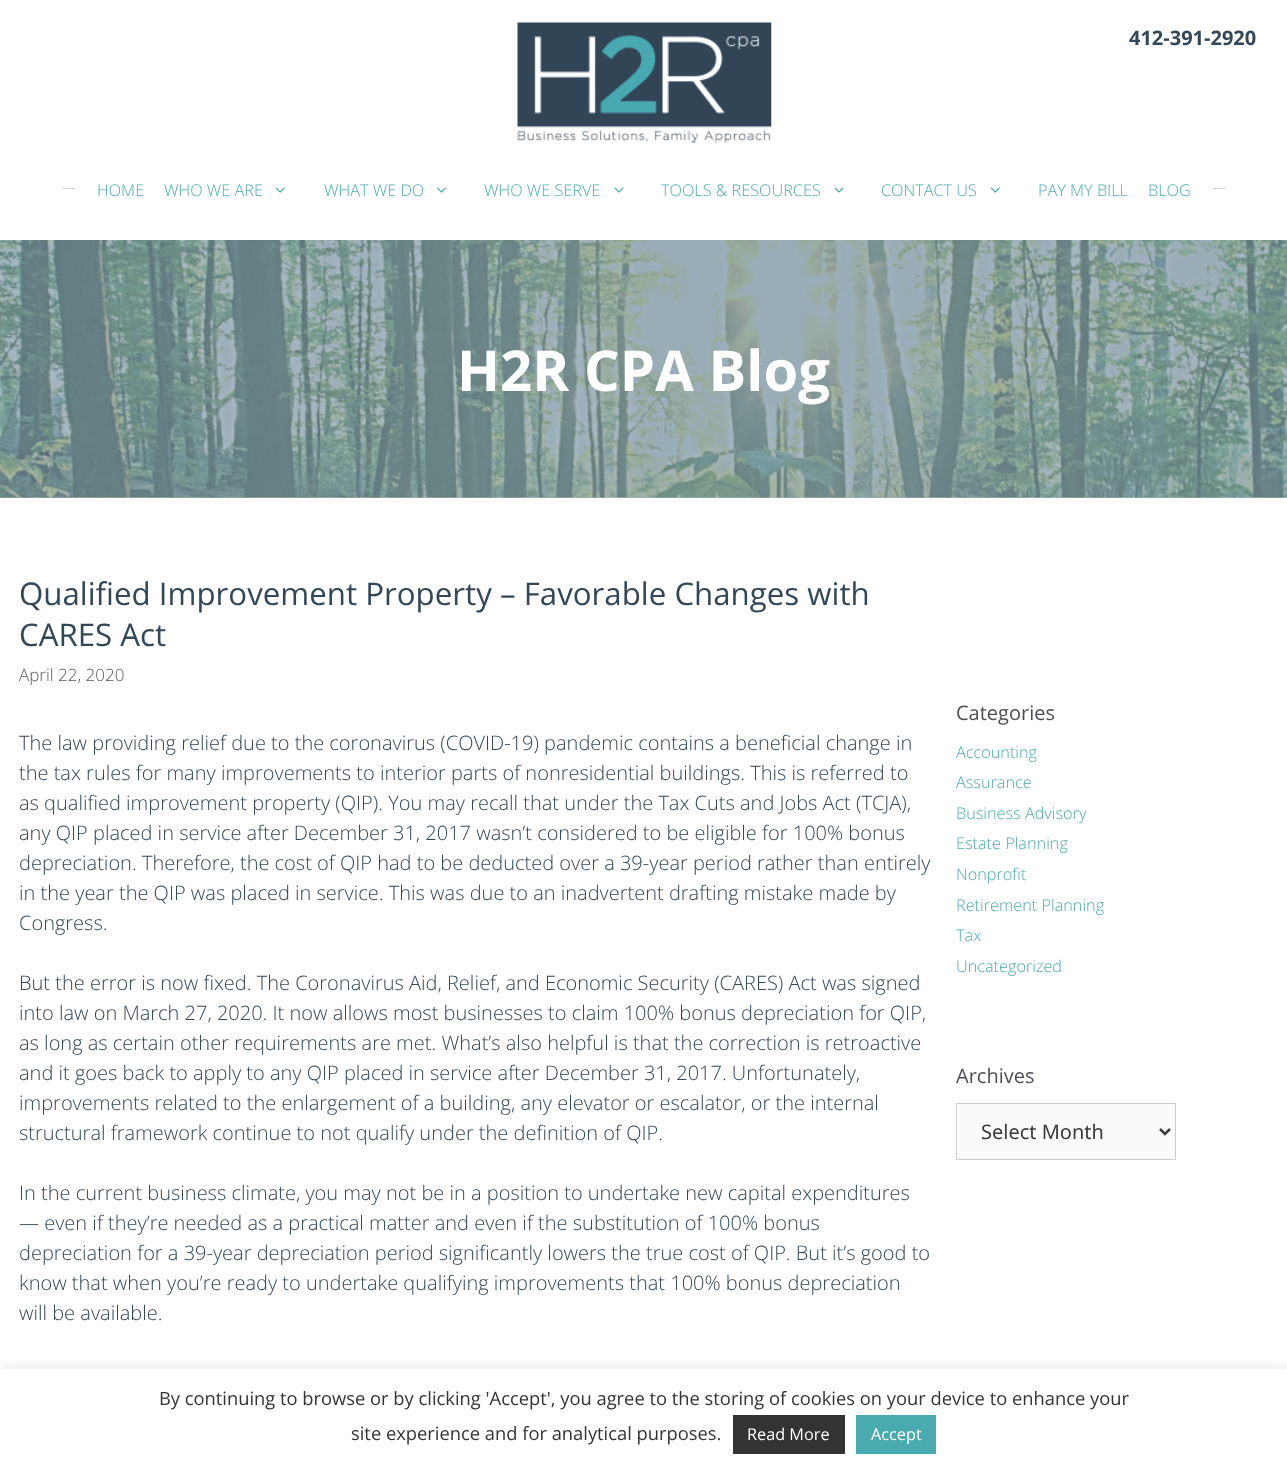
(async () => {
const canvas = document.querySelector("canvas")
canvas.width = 1287
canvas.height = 1471
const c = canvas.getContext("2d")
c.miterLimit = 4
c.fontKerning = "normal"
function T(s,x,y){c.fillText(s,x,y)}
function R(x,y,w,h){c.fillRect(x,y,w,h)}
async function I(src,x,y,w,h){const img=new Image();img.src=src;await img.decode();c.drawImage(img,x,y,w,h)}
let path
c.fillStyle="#fff"
R(0,0,1287,1471)
c.fillStyle="#a6b8c1"
R(0,497,1287,1)
await I("1.png",517,22,255,121)
c.font="bold 20px Open Sans"
c.fillStyle="#324758"
T("412-391-2920",1129,45)
c.fillStyle="#d0d0d0"
R(63,188,12,1)
c.font="300 16.25px Open Sans"
c.fillStyle="#4aabb1"
T("HOME",97,196)
T("WHO WE ARE",164,196)
await I("2.png",275,187,10,6)
T("WHAT WE DO",324,196)
await I("3.png",437,187,9,6)
T("WHO WE SERVE",484,196)
await I("4.png",614,187,10,6)
T("TOOLS & RESOURCES",661,196)
await I("4.png",834,187,10,6)
T("CONTACT US",881,196)
await I("2.png",990,187,10,6)
T("PAY MY BILL",1038,196)
T("BLOG",1148,196)
c.fillStyle="#d0d0d0"
R(1213,188,12,1)
await I("5.png",0,240,1287,258)
c.font="bold 56.25px Open Sans"
c.fillStyle="#fff"
T("H2R CPA Blog",457,391)
c.font="31.25px Open Sans"
c.fillStyle="#324758"
T("Qualified Improvement Property – Favorable Changes with",19,605)
T("CARES Act",19,646)
c.font="300 17px Open Sans"
c.fillStyle="#595959"
T("April 22, 2020",19,681)
c.font="300 20px Open Sans"
c.fillStyle="#324758"
T("The law providing relief due to the coronavirus (COVID-19) pandemic contains a beneficial change in",19,750)
T("the tax rules for many improvements to interior parts of nonresidential buildings. This is referred to",19,780)
T("as qualified improvement property (QIP). You may recall that under the Tax Cuts and Jobs Act (TCJA),",19,810)
T("any QIP placed in service after December 31, 2017 wasn’t considered to be eligible for 100% bonus",19,840)
T("depreciation. Therefore, the cost of QIP had to be deducted over a 39-year period rather than entirely",19,870)
T("in the year the QIP was placed in service. This was due to an inadvertent drafting mistake made by",19,900)
T("Congress.",19,930)
T("But the error is now fixed. The Coronavirus Aid, Relief, and Economic Security (CARES) Act was signed",19,990)
T("into law on March 27, 2020. It now allows most businesses to claim 100% bonus depreciation for QIP,",19,1020)
T("as long as certain other requirements are met. What’s also helpful is that the correction is retroactive",19,1050)
T("and it goes back to apply to any QIP placed in service after December 31, 2017. Unfortunately,",19,1080)
T("improvements related to the enlargement of a building, any elevator or escalator, or the internal",19,1110)
T("structural framework continue to not qualify under the definition of QIP.",19,1140)
T("In the current business climate, you may not be in a position to undertake new capital expenditures",19,1200)
T("— even if they’re needed as a practical matter and even if the substitution of 100% bonus",19,1230)
T("depreciation for a 39-year depreciation period significantly lowers the true cost of QIP. But it’s good to",19,1260)
T("know that when you’re ready to undertake qualifying improvements that 100% bonus depreciation",19,1290)
T("will be available.",19,1320)
c.font="20px Open Sans"
c.fillStyle="#484f56"
T("Categories",956,720)
c.font="300 16.25px Open Sans"
c.fillStyle="#4aabb1"
T("Accounting",956,758)
T("Assurance",956,788)
T("Business Advisory",956,819)
T("Estate Planning",956,849)
T("Nonprofit",956,880)
T("Retirement Planning",956,911)
T("Tax",956,941)
T("Uncategorized",956,972)
c.font="20px Open Sans"
c.fillStyle="#484f56"
T("Archives",956,1083)
c.fillStyle="#fafafa"
c.beginPath()
c.rect(956.5,1103.5,219,56)
c.fill()
c.strokeStyle="#ccc"
c.stroke()
path = new Path2D("M1160 1129l5 5l5-5")
c.strokeStyle="#3a3a3a"
c.lineWidth=2.5
c.stroke(path)
c.font="20px Noto Sans"
c.fillStyle="#3a3a3a"
T("Select Month",981,1139)
c.fillStyle="#acabab4d"
c.filter="blur(6px)"
c.beginPath()
c.rect(0,1368,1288,102)
c.fill()
c.filter="none"
c.fillStyle="#fff"
R(0,1369,1287,102)
c.font="18.33px Open Sans"
c.fillStyle="#333"
T("By continuing to browse or by clicking 'Accept', you agree to the storing of cookies on your device to enhance your",159,1405)
T("site experience and for analytical purposes.",351,1440)
R(733,1415,112,39)
c.font="16.25px Open Sans"
c.fillStyle="#fff"
T("Read More",747,1440)
c.fillStyle="#49aab0"
R(856,1415,80,39)
c.fillStyle="#fff"
T("Accept",871,1440)
})()
